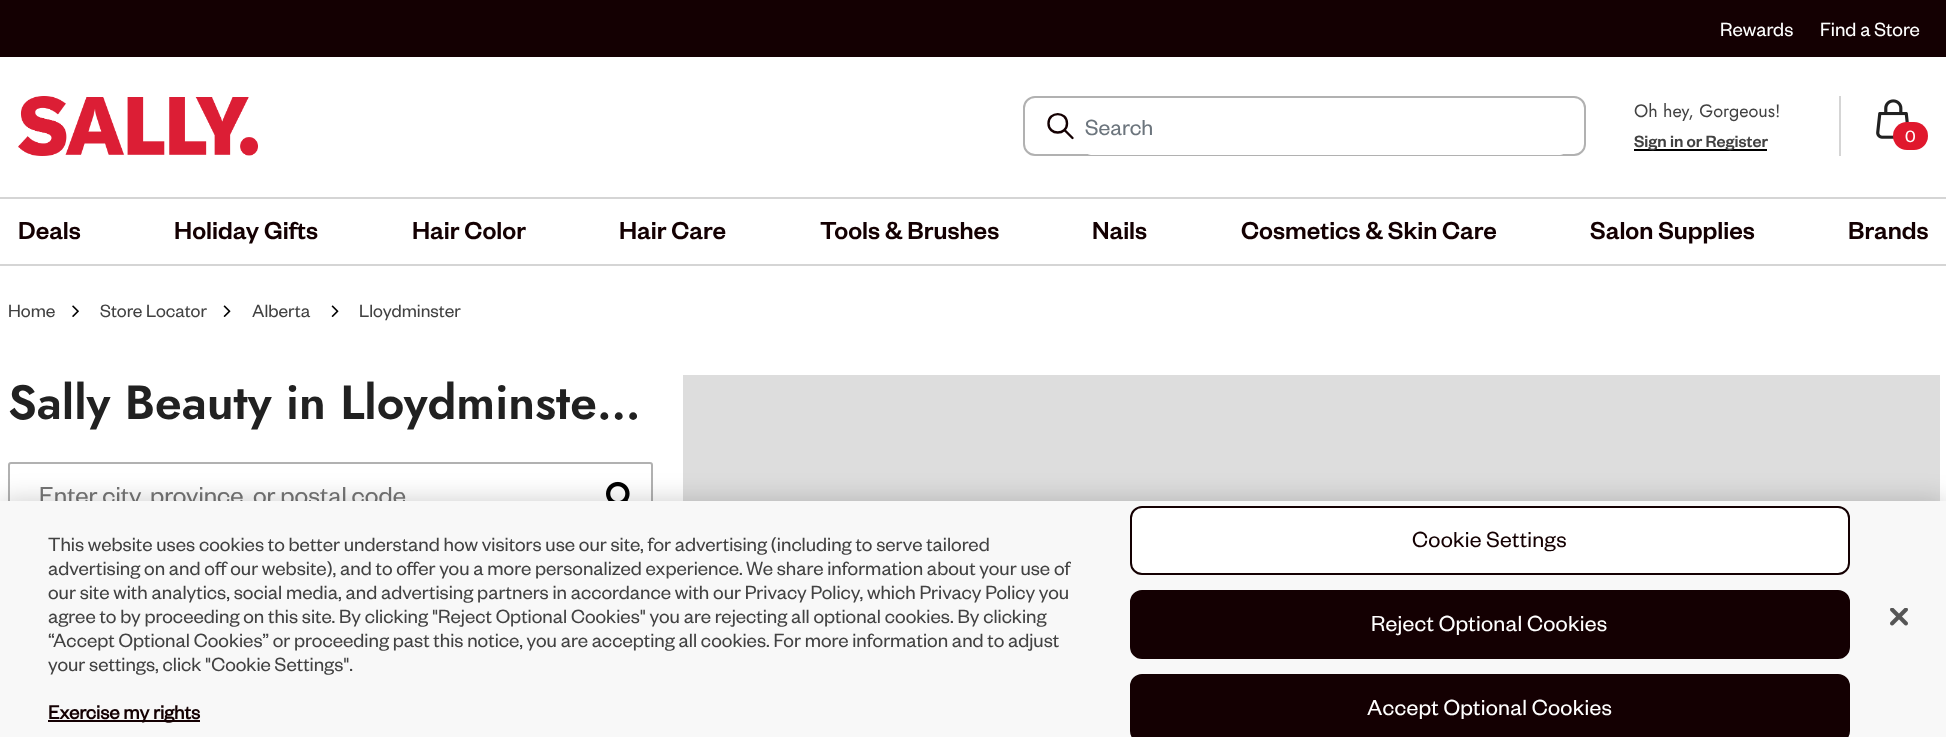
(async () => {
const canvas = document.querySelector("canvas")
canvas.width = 1946
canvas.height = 737
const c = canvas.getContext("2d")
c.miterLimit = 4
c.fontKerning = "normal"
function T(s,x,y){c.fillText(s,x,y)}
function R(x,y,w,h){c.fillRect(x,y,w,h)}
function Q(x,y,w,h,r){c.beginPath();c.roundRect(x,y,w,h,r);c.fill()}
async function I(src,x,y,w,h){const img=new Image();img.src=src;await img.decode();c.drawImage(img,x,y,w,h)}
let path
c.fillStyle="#fff"
R(0,0,1946,737)
c.fillStyle="#140002"
R(0,0,1946,57)
c.font="21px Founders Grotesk"
c.fillStyle="#fff"
T("Rewards",1720,36)
T("Find a Store",1820,36)
await I("1.png",18,96,240,60)
c.beginPath()
c.roundRect(1024,97,561,58,11)
c.strokeStyle="#b1b1b1"
c.lineWidth=2
c.stroke()
path = new Path2D("M1072.5 138l-8-8m2.5-6.5c0 12-18.5 12-18.5 0c0-12.5 18.5-12.5 18.5 0z")
c.strokeStyle="#140002"
c.lineWidth=2.4
c.lineCap="round"
c.lineJoin="round"
c.stroke(path)
Q(1085,98,481,57,6)
c.font="24px Founders Grotesk"
c.fillStyle="#6c757d"
T("Search",1085,135)
c.font="18px Jost"
c.fillStyle="#424242"
T("Oh hey, Gorgeous!",1634,117)
c.fillStyle="#000"
R(1634,149,133,2)
c.font="500 18px Founders Grotesk"
c.fillStyle="#424242"
T("Sign in or Register",1634,147)
c.fillStyle="#d5d5d5"
R(1839,96,2,60)
await I("2.png",1876,99,33,40)
c.fillStyle="#e0182d"
Q(1893,122,35,28,14)
c.font="18px Founders Grotesk"
c.fillStyle="#fff"
T("0",1905,142)
c.fillStyle="#d5d5d5"
R(0,197,1946,2)
c.font="500 27px Founders Grotesk"
c.fillStyle="#140002"
T("Deals",18,239)
T("Holiday Gifts",174,239)
T("Hair Color",412,239)
T("Hair Care",619,239)
T("Tools & Brushes",820,239)
T("Nails",1092,239)
T("Cosmetics & Skin Care",1241,239)
T("Salon Supplies",1590,239)
T("Brands",1848,239)
c.fillStyle="#d5d5d5"
R(0,264,1946,2)
c.font="19.5px Founders Grotesk"
c.fillStyle="#424242"
T("Home",8,317)
await I("3.png",72,305,7,12)
T("Store Locator",100,317)
await I("4.png",223,305,8,12)
T("Alberta",252,317)
await I("4.png",331,305,8,12)
T("Lloydminster",359,317)
c.font="600 48px Jost"
c.fillStyle="#212121"
T("Sally Beauty in Lloydminste…",8,419)
c.beginPath()
c.roundRect(9,463,643,63,2)
c.strokeStyle="#b1b1b1"
c.lineWidth=2
c.lineJoin="miter"
c.stroke()
c.font="27px Founders Grotesk"
c.fillStyle="#757575"
T("Enter city, province, or postal code",39,504)
await I("5.png",606,481,24,20)
c.fillStyle="#ddd"
R(683,375,1257,126)
c.fillStyle="#00000033"
c.filter="blur(13.5px)"
c.beginPath()
c.rect(0,501,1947,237)
c.fill()
c.filter="none"
c.fillStyle="#f8f8f8"
R(0,501,1946,236)
c.font="21px Founders Grotesk"
c.fillStyle="#424242"
T("This website uses cookies to better understand how visitors use our site, for advertising (including to serve tailored",48,551)
T("advertising on and off our website), and to offer you a more personalized experience.",48,575)
c.save()
c.beginPath()
c.rect(48,531,1023,192)
c.clip()
T("We share information about your use of",746,575)
c.restore()
T("our site with analytics, social media, and advertising partners in accordance with our Privacy Policy, which Privacy Policy you",48,599)
T("agree to by proceeding on this site. By clicking \"Reject Optional Cookies\" you are rejecting all optional cookies. By clicking",48,623)
T("“Accept Optional Cookies” or proceeding past this notice, you are accepting all cookies. For more information and to adjust",48,647)
T("your settings, click \"Cookie Settings\".",48,671)
c.fillStyle="#140002"
R(48,720,152,2)
c.font="bold 21px Founders Grotesk"
T("Exercise my rights",48,719)
c.fillStyle="#fff"
c.beginPath()
c.roundRect(1131,507,718,67,11)
c.fill()
c.strokeStyle="#140002"
c.stroke()
c.letterSpacing="0.25px"
c.font="24px Founders Grotesk"
c.fillStyle="#140002"
T("Cookie Settings",1412,547)
c.beginPath()
c.roundRect(1131,591,718,67,11)
c.fill()
c.stroke()
c.fillStyle="#fff"
T("Reject Optional Cookies",1371,631)
c.fillStyle="#140002"
c.beginPath()
c.roundRect(1131,675,718,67,11)
c.fill()
c.stroke()
c.fillStyle="#fff"
T("Accept Optional Cookies",1367,715)
await I("6.png",1890,608,18,18)
})()
